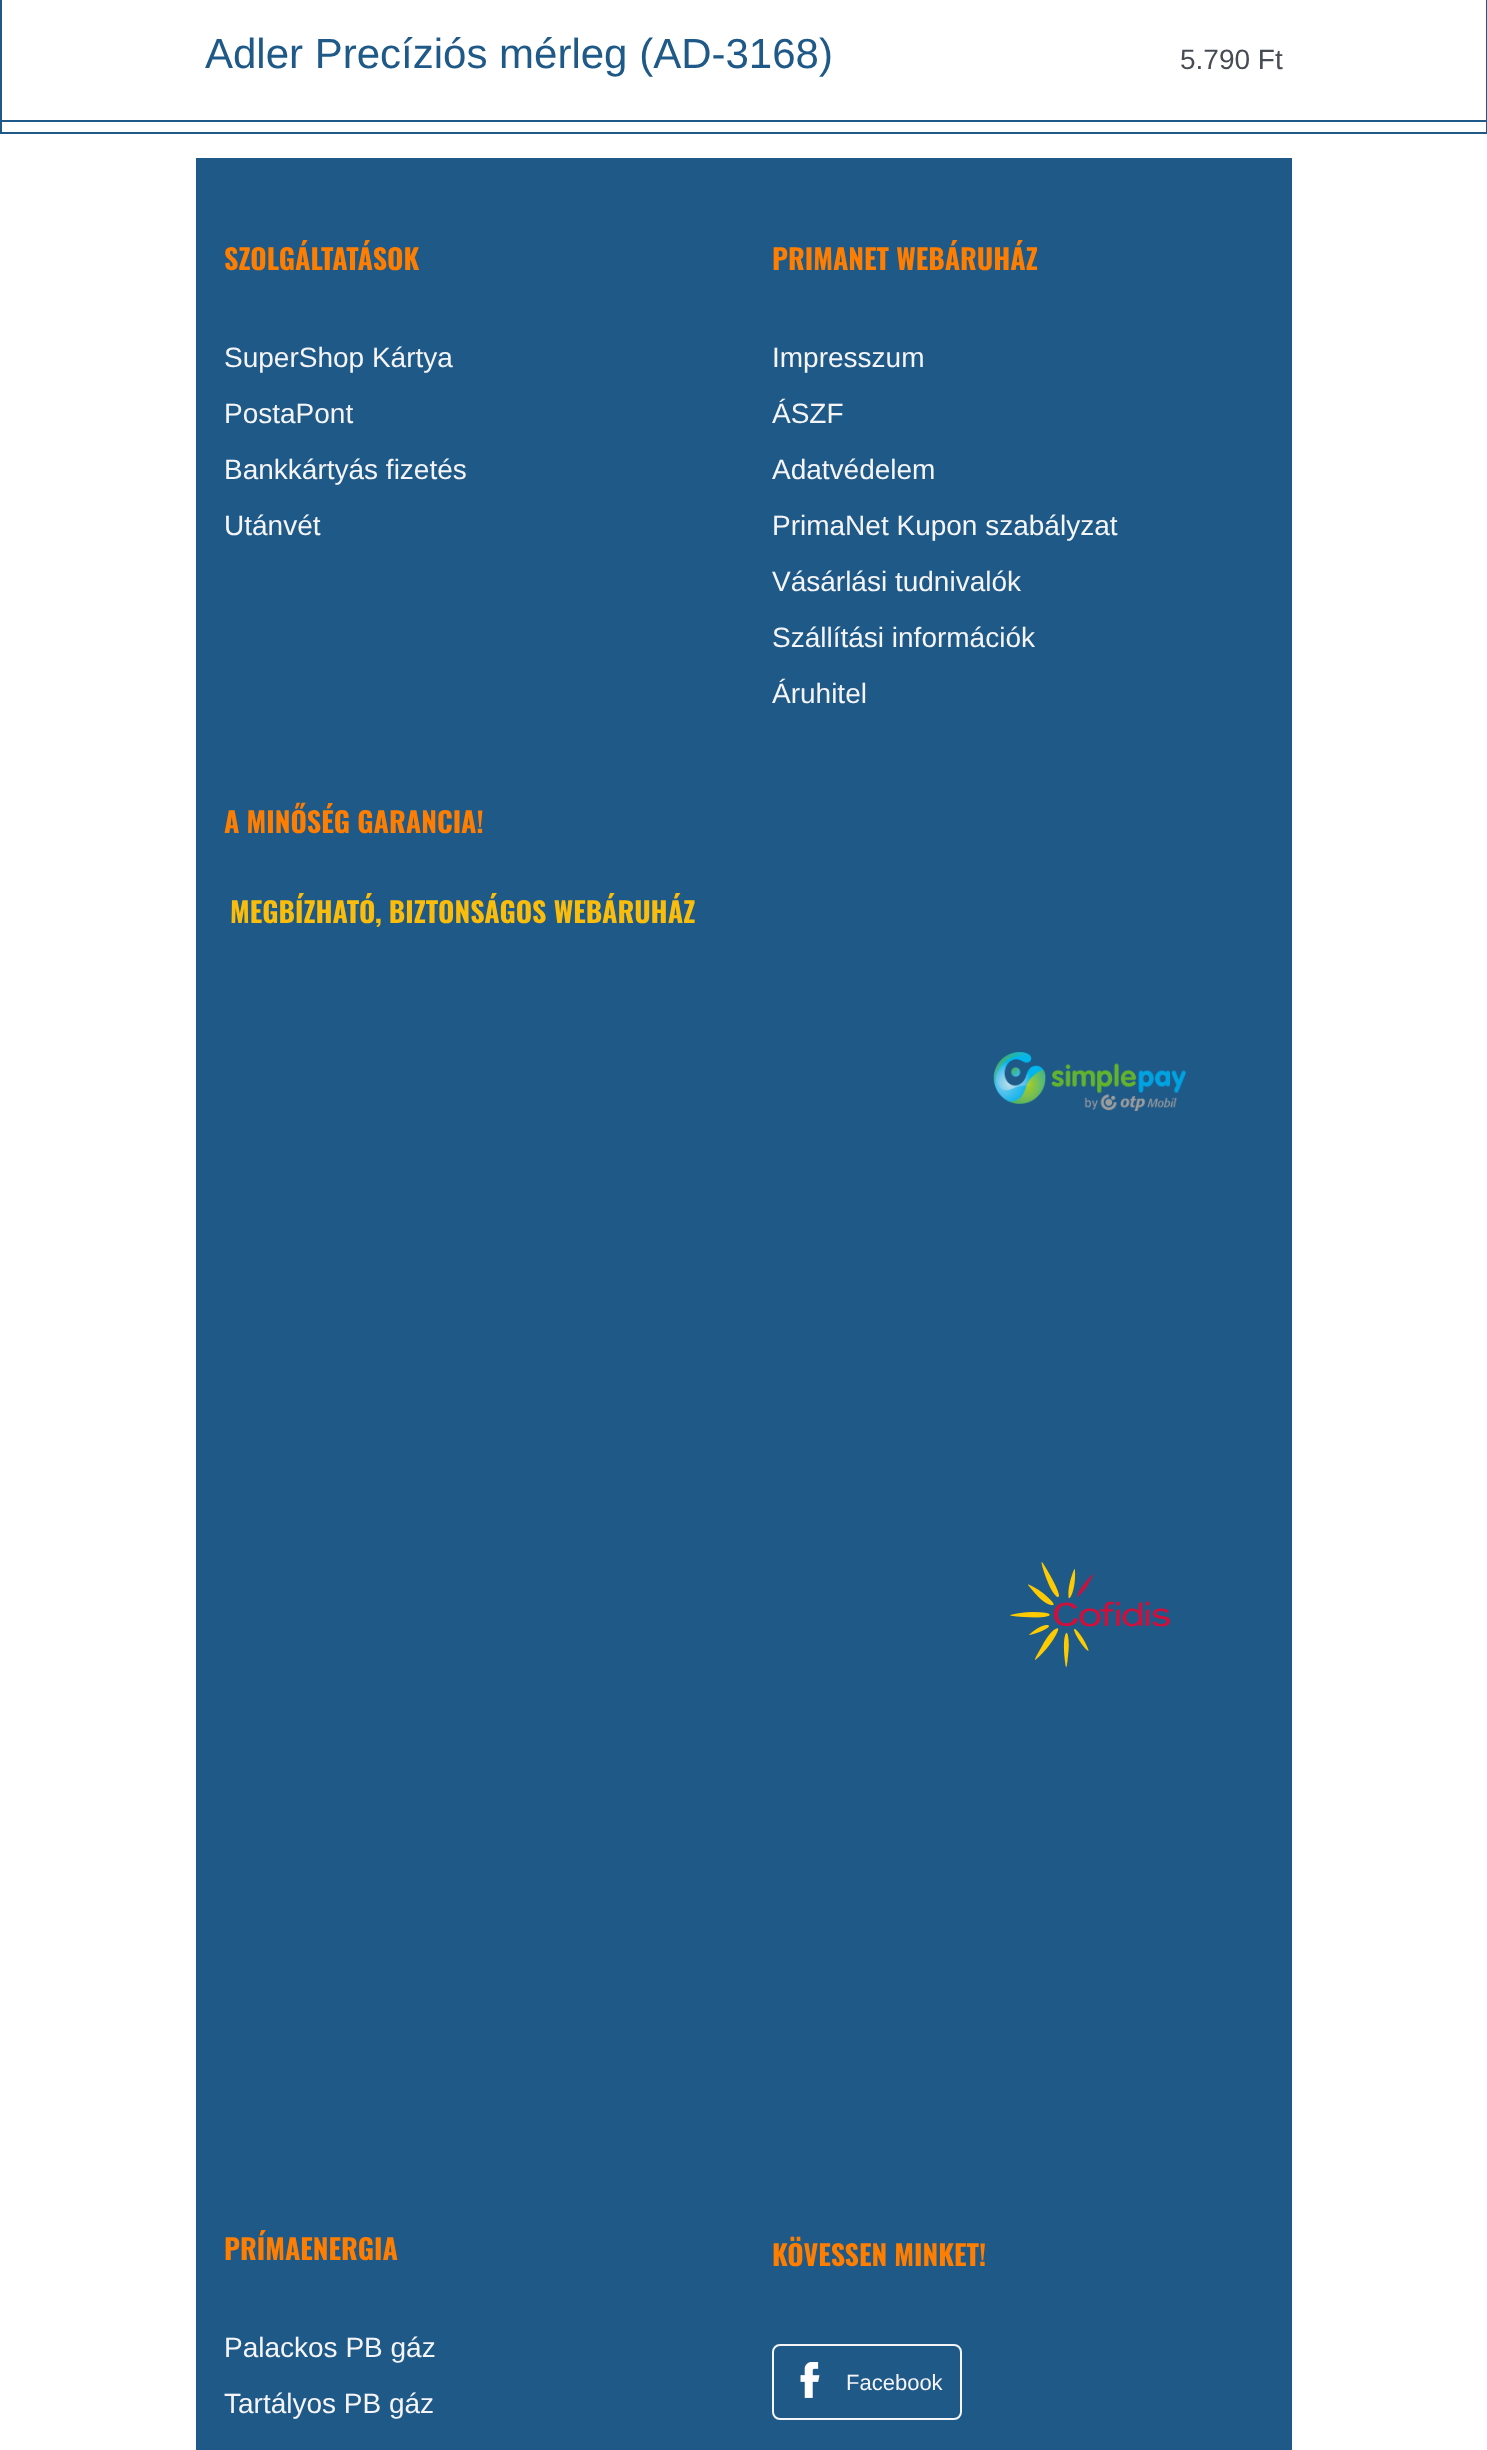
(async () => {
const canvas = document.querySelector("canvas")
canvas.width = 1487
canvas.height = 2450
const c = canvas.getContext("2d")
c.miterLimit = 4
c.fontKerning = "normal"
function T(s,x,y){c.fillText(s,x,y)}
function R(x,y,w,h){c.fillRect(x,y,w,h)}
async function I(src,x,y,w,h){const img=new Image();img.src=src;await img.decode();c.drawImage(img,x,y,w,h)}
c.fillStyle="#fff"
R(0,0,1487,2450)
c.fillStyle="#1f5988"
R(1486,0,1,134)
R(0,132,1487,2)
R(0,122,2,12)
R(0,120,1487,2)
R(0,0,2,122)
c.font="42px Liberation Sans"
T("Adler Precíziós mérleg (AD-3168)",205,68)
c.font="28px Liberation Sans"
c.fillStyle="#474b53"
T("5.790 Ft",1180,69)
c.fillStyle="#1f5988"
R(196,158,1096,2292)
c.font="bold 28px Oswald"
c.fillStyle="#ff7e00"
T("SZOLGÁLTATÁSOK",224,270)
c.font="28px Liberation Sans"
c.fillStyle="#f5f5f7"
T("SuperShop Kártya",224,367)
T("PostaPont",224,423)
T("Bankkártyás fizetés",224,479)
T("Utánvét",224,535)
c.font="bold 28px Oswald"
c.fillStyle="#ff7e00"
T("PRIMANET WEBÁRUHÁZ",772,270)
c.font="28px Liberation Sans"
c.fillStyle="#f5f5f7"
T("Impresszum",772,367)
T("ÁSZF",772,423)
T("Adatvédelem",772,479)
T("PrimaNet Kupon szabályzat",772,535)
T("Vásárlási tudnivalók",772,591)
T("Szállítási információk",772,647)
T("Áruhitel",772,703)
c.font="bold 28px Oswald"
c.fillStyle="#ff7e00"
T("A MINŐSÉG GARANCIA!",224,833)
c.fillStyle="#fbbd0b"
T("MEGBÍZHATÓ, BIZTONSÁGOS WEBÁRUHÁZ",230,923)
await I("1.png",993,1052,193,59)
await I("2.png",1010,1562,160,106)
c.fillStyle="#ff7e00"
T("PRÍMAENERGIA",224,2260)
c.font="28px Liberation Sans"
c.fillStyle="#f5f5f7"
T("Palackos PB gáz",224,2357)
T("Tartályos PB gáz",224,2413)
c.font="bold 28px Oswald"
c.fillStyle="#ff7e00"
T("KÖVESSEN MINKET!",772,2266)
c.beginPath()
c.roundRect(773,2345,188,74,7)
c.strokeStyle="#f5f5f7"
c.lineWidth=2
c.stroke()
await I("3.png",800,2362,20,36)
c.font="22px Liberation Sans"
c.fillStyle="#f5f5f7"
T("Facebook",846,2390)
})()
